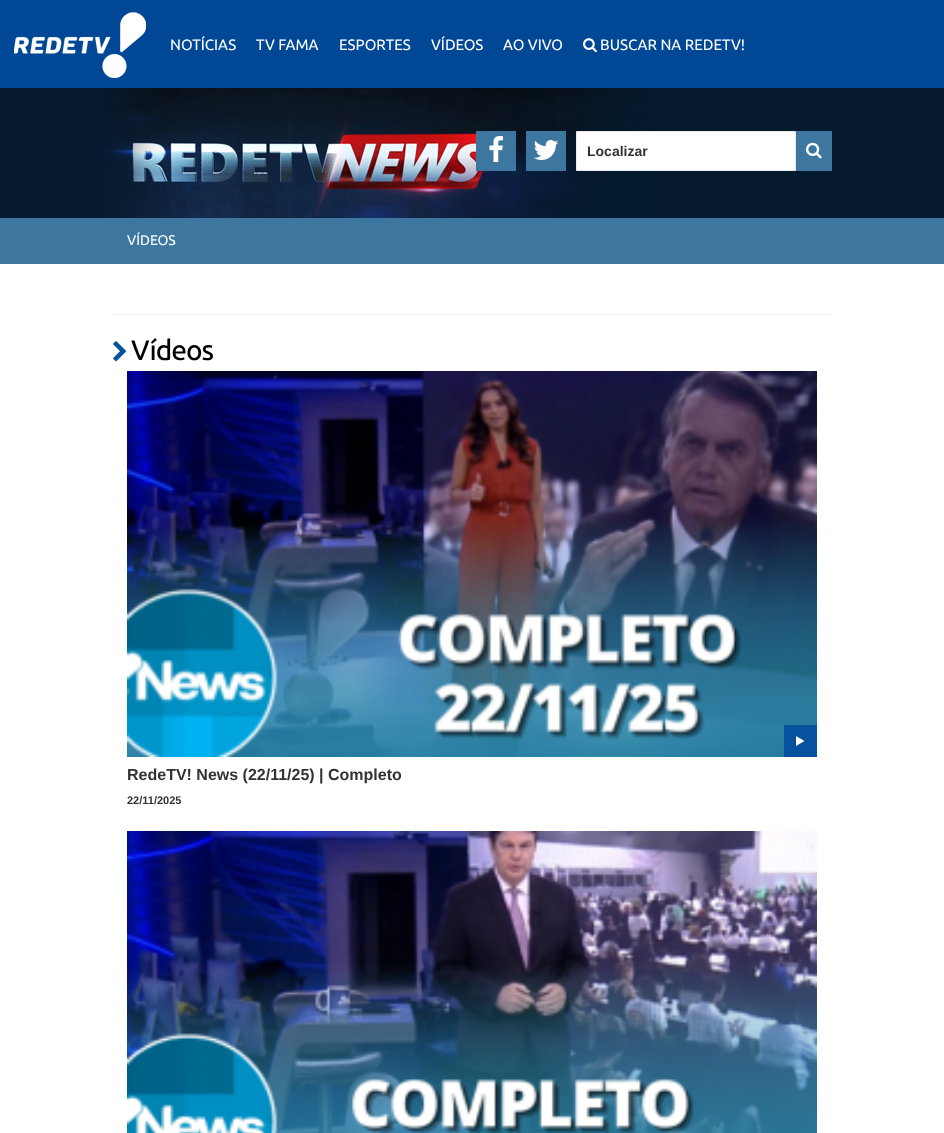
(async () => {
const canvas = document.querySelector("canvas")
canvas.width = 944
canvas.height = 1133
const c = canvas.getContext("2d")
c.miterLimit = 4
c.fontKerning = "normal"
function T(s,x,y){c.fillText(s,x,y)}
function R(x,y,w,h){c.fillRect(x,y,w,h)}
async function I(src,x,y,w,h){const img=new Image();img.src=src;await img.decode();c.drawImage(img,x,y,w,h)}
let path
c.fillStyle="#fff"
R(0,0,944,1133)
c.fillStyle="#004795"
R(0,0,944,88)
await I("1.png",14,12,132,66)
c.font="15px Ubuntu"
c.fillStyle="#fff"
T("NOTÍCIAS",170,50)
T("TV FAMA",256,50)
T("ESPORTES",339,50)
T("VÍDEOS",431,50)
T("AO VIVO",503,50)
await I("2.png",583,38,14,15)
T("BUSCAR NA REDETV!",600,50)
c.fillStyle="#051a2e"
R(0,88,944,130)
await I("3.png",99,88,550,130)
c.fillStyle="#3d77a0"
R(476,131,40,40)
await I("4.png",489,136,14,26)
R(526,131,40,40)
await I("5.png",533,140,26,20)
c.fillStyle="#fff"
c.beginPath()
c.rect(576.5,131.5,219,39)
c.fill()
c.strokeStyle="#ebebeb"
c.stroke()
c.font="bold 14px Liberation Sans"
c.fillStyle="#333"
T("Localizar",587,156)
c.fillStyle="#3d77a0"
R(796,131,36,40)
await I("6.png",806,142,16,17)
R(0,218,944,46)
c.font="14px Ubuntu"
c.fillStyle="#fff"
T("VÍDEOS",127,245)
c.fillStyle="#eee"
R(112,314,720,1)
await I("7.png",113,341,13,21)
c.letterSpacing="-1px"
c.font="500 28px Ubuntu"
c.fillStyle="#000"
T("Vídeos",131,360)
await I("8.png",127,371,690,386)
c.fillStyle="#07529e"
R(784,725,33,32)
c.fillStyle="#fff"
path = new Path2D("M796 745.5v-9.5l8.5 5l-8.5 5z")
c.fill(path)
c.letterSpacing="0px"
c.font="bold 16px Liberation Sans"
c.fillStyle="#333"
T("RedeTV! News (22/11/25) | Completo",127,780)
c.font="bold 11px Liberation Sans"
T("22/11/2025",127,804)
await I("9.png",127,831,690,302)
})()
